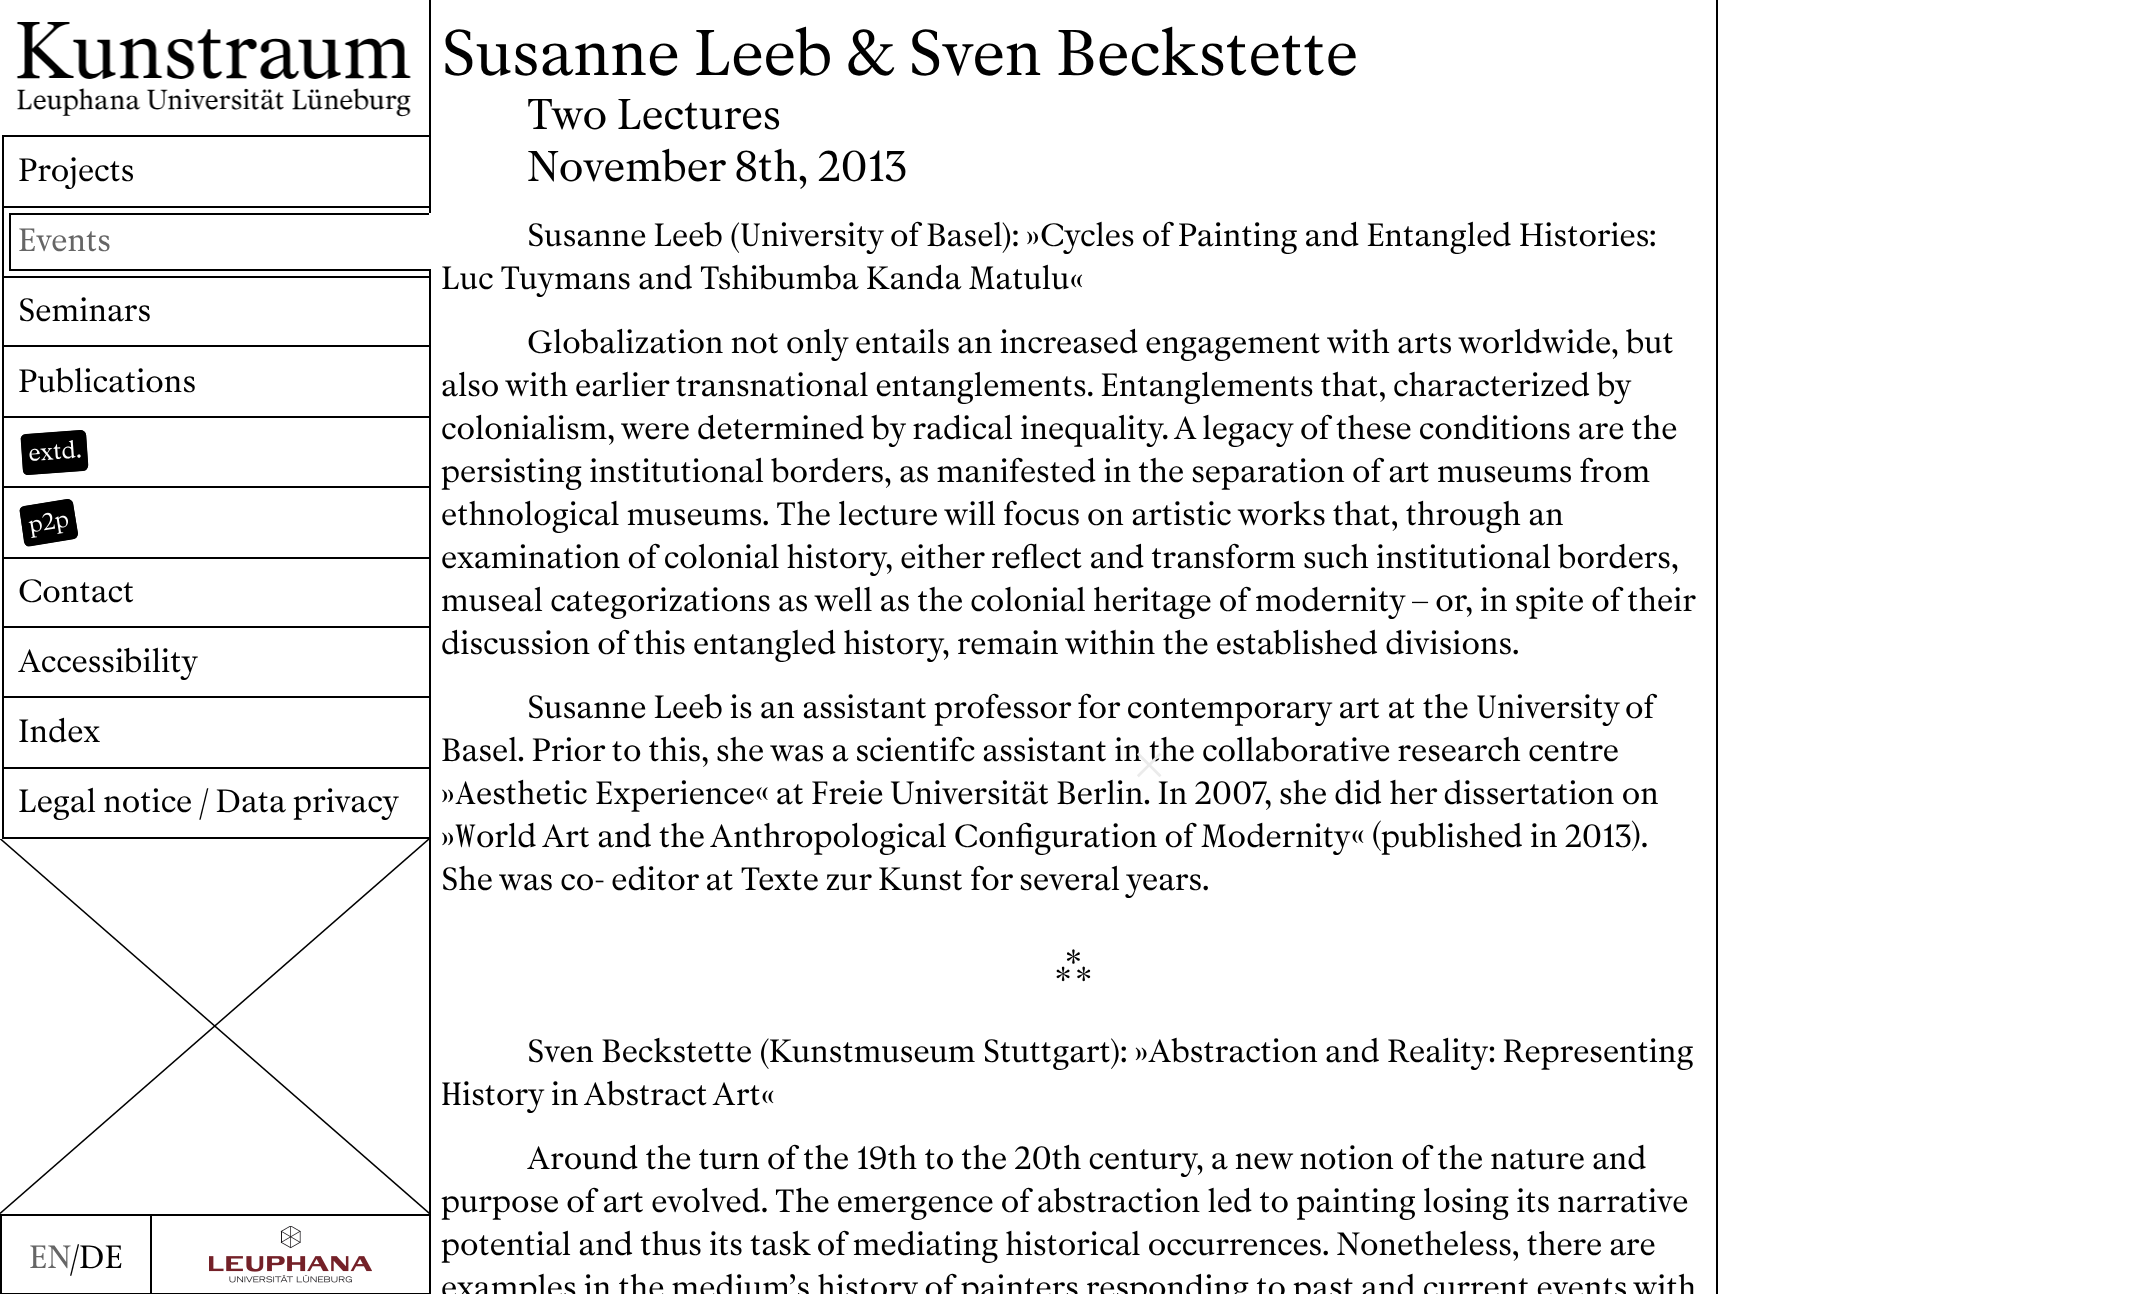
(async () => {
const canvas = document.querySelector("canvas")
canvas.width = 2146
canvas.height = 1294
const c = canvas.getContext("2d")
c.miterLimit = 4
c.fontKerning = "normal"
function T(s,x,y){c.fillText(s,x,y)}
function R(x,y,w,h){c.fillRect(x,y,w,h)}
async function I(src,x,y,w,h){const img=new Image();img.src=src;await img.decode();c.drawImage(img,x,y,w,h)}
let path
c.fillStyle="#fff"
R(0,0,2146,1294)
await I("1.png",16,22,395,95)
c.fillStyle="#000"
R(2,135,427,2)
R(429,0,2,1294)
R(2,206,429,2)
R(2,137,2,70)
c.font="32.2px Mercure"
T("Projects",18,181)
R(2,276,429,2)
R(2,207,2,71)
R(9,213,422,2)
c.fillStyle="#fff"
R(429,213,2,57)
c.fillStyle="#000"
R(9,269,422,2)
R(9,213,2,57)
c.fillStyle="#666"
T("Events",18,251)
c.fillStyle="#000"
R(2,345,429,2)
R(2,278,2,69)
T("Seminars",18,321)
R(2,416,429,2)
R(2,347,2,70)
T("Publications",18,392)
R(2,486,429,2)
R(2,417,2,71)
path = new Path2D("M26 434l54-4c3 0 6 2 6 5l2 30c0 3-2 6-5 6l-55 4c-3 0-5-2-5-5l-2-30c-1-3 2-6 5-6z")
c.fill(path)
path = new Path2D("M25.5 435l55-4c2.5 0 4.5 2 5 4.5l2 29.5c0 3-2 5-4.5 5l-54.5 4c-2.5 0-5-1.5-5-4.5l-2-29.5c-.5-2.5 1.5-5 4-5z")
c.strokeStyle="#000"
c.lineWidth=1.5
c.stroke(path)
c.font="24px Mercure"
c.fillStyle="#fff"
c.save()
c.translate(29,461)
c.rotate(-4 * Math.PI / 180)
c.fillText("extd.",0,0)
c.restore()
c.fillStyle="#000"
R(2,557,429,2)
R(2,488,2,70)
path = new Path2D("M24 506l43-7c3 0 6 2 6 5l5 29c0 3-2 6-5 6l-43 7c-3 1-5-1-6-4l-4-30c-1-3 1-5 4-6z")
c.fill(path)
path = new Path2D("M24 507l43-7c2.5-.5 5 1.5 5.5 4l4.5 29.5c.5 2.5-1.5 4.5-4 5l-42.5 7c-3 .5-5-1.5-5.5-4l-4.5-29.5c-.5-2.5 1-5 3.5-5z")
c.stroke(path)
await I("2.png",28,512,40,26)
R(2,626,429,2)
R(2,558,2,69)
c.font="32.2px Mercure"
T("Contact",18,602)
R(2,696,429,2)
R(2,627,2,71)
T("Accessibility",18,672)
R(2,767,429,2)
R(2,698,2,70)
T("Index",18,742)
R(2,837,429,2)
R(2,768,2,71)
T("Legal notice / Data privacy",18,812)
c.save()
c.beginPath()
c.rect(0,839,429,375)
c.clip()
path = new Path2D("M429.5 1213.5l-429.5-375")
c.stroke(path)
path = new Path2D("M429.5 838.5l-429.5 375")
c.stroke(path)
c.restore()
R(0,1214,429,2)
R(0,1293,429,1)
R(0,1215,2,79)
c.fillStyle="#666"
T("EN",29,1268)
c.fillStyle="#000"
T("/DE",70,1268)
R(150,1215,2,79)
await I("3.png",209,1226,163,57)
R(1716,0,2,1294)
c.font="64.4px Mercure"
T("Susanne Leeb & Sven Beckstette",441,75)
c.font="43px Mercure"
T("Two Lectures",527,129)
c.font="43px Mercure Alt"
T("November 8th, 2013",527,181)
c.font="32.2px Mercure"
T("Susanne Leeb (",527,246)
c.font="32.2px 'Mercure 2'"
T("U",740,246)
c.font="32.2px Mercure"
T("niversity",761,246)
T("of Basel): »Cycles of Painting and Entangled Histories:",890,246)
T("Luc Tuymans and Tshibumba Kanda Matulu«",441,289)
T("Globalization not only entails an increased engagement with arts worldwide, but",527,353)
c.wordSpacing="-0.25px"
T("also with earlier transnational entanglements. Entanglements that, characterized by",441,396)
c.wordSpacing="0px"
T("colonialism, were determined by radical inequality. A legacy of these conditions are the",441,439)
T("persisting institutional borders, as manifested in the separation of art museums from",441,482)
T("ethnological museums. The lecture will focus on artistic works that, through an",441,525)
T("examination of colonial history, either reflect and transform such institutional borders,",441,568)
T("museal categorizations as well as the colonial heritage of modernity – or, in spite of their",441,611)
T("discussion of this entangled history, remain within the established divisions.",441,654)
T("Susanne Leeb is an assistant professor for contemporary art at the",527,718)
c.font="32.2px 'Mercure 2'"
T("U",1476,718)
c.font="32.2px Mercure"
T("niversity",1497,718)
T("of",1625,718)
T("Basel. Prior to this, she was a scientifc assistant in the collaborative research centre",441,761)
T("»",441,804)
c.font="32.2px 'Mercure 2'"
T("A",455,804)
c.font="32.2px Mercure"
T("esthetic",476,804)
c.font="32.2px Mercure Alt"
T("Experience« at Freie Universität Berlin. In 2007, she did her dissertation on",595,804)
c.font="32.2px Mercure"
T("»",441,847)
c.font="32.2px 'Mercure 2'"
T("W",455,847)
c.font="32.2px Mercure"
T("orld",476,847)
c.font="32.2px Mercure Alt"
T("Art and the Anthropological Configuration of Modernity« (published in 2013).",542,847)
c.font="32.2px Mercure"
T("She was co- editor at Texte zur Kunst for several years.",441,890)
T("⁂",1055,976)
T("Sven Beckstette (Kunstmuseum Stuttgart): »Abstraction and Reality: Representing",527,1062)
c.font="32.2px 'Mercure 2'"
T("H",441,1105)
c.font="32.2px Mercure"
T("istory",462,1105)
T("in Abstract Art«",551,1105)
c.font="32.2px Mercure Alt"
T("Around the turn of the 19th to the 20th century, a new notion of the nature and",527,1169)
c.font="32.2px Mercure"
T("purpose of art evolved. The emergence of abstraction led to painting losing its narrative",441,1212)
T("potential and thus its task of mediating historical occurrences. Nonetheless, there are",441,1255)
T("examples in the medium’s history of painters responding to past and current events with",441,1298)
c.font="64.4px Mercure"
c.fillStyle="#ebebeb"
T("×",1134,781)
})()
